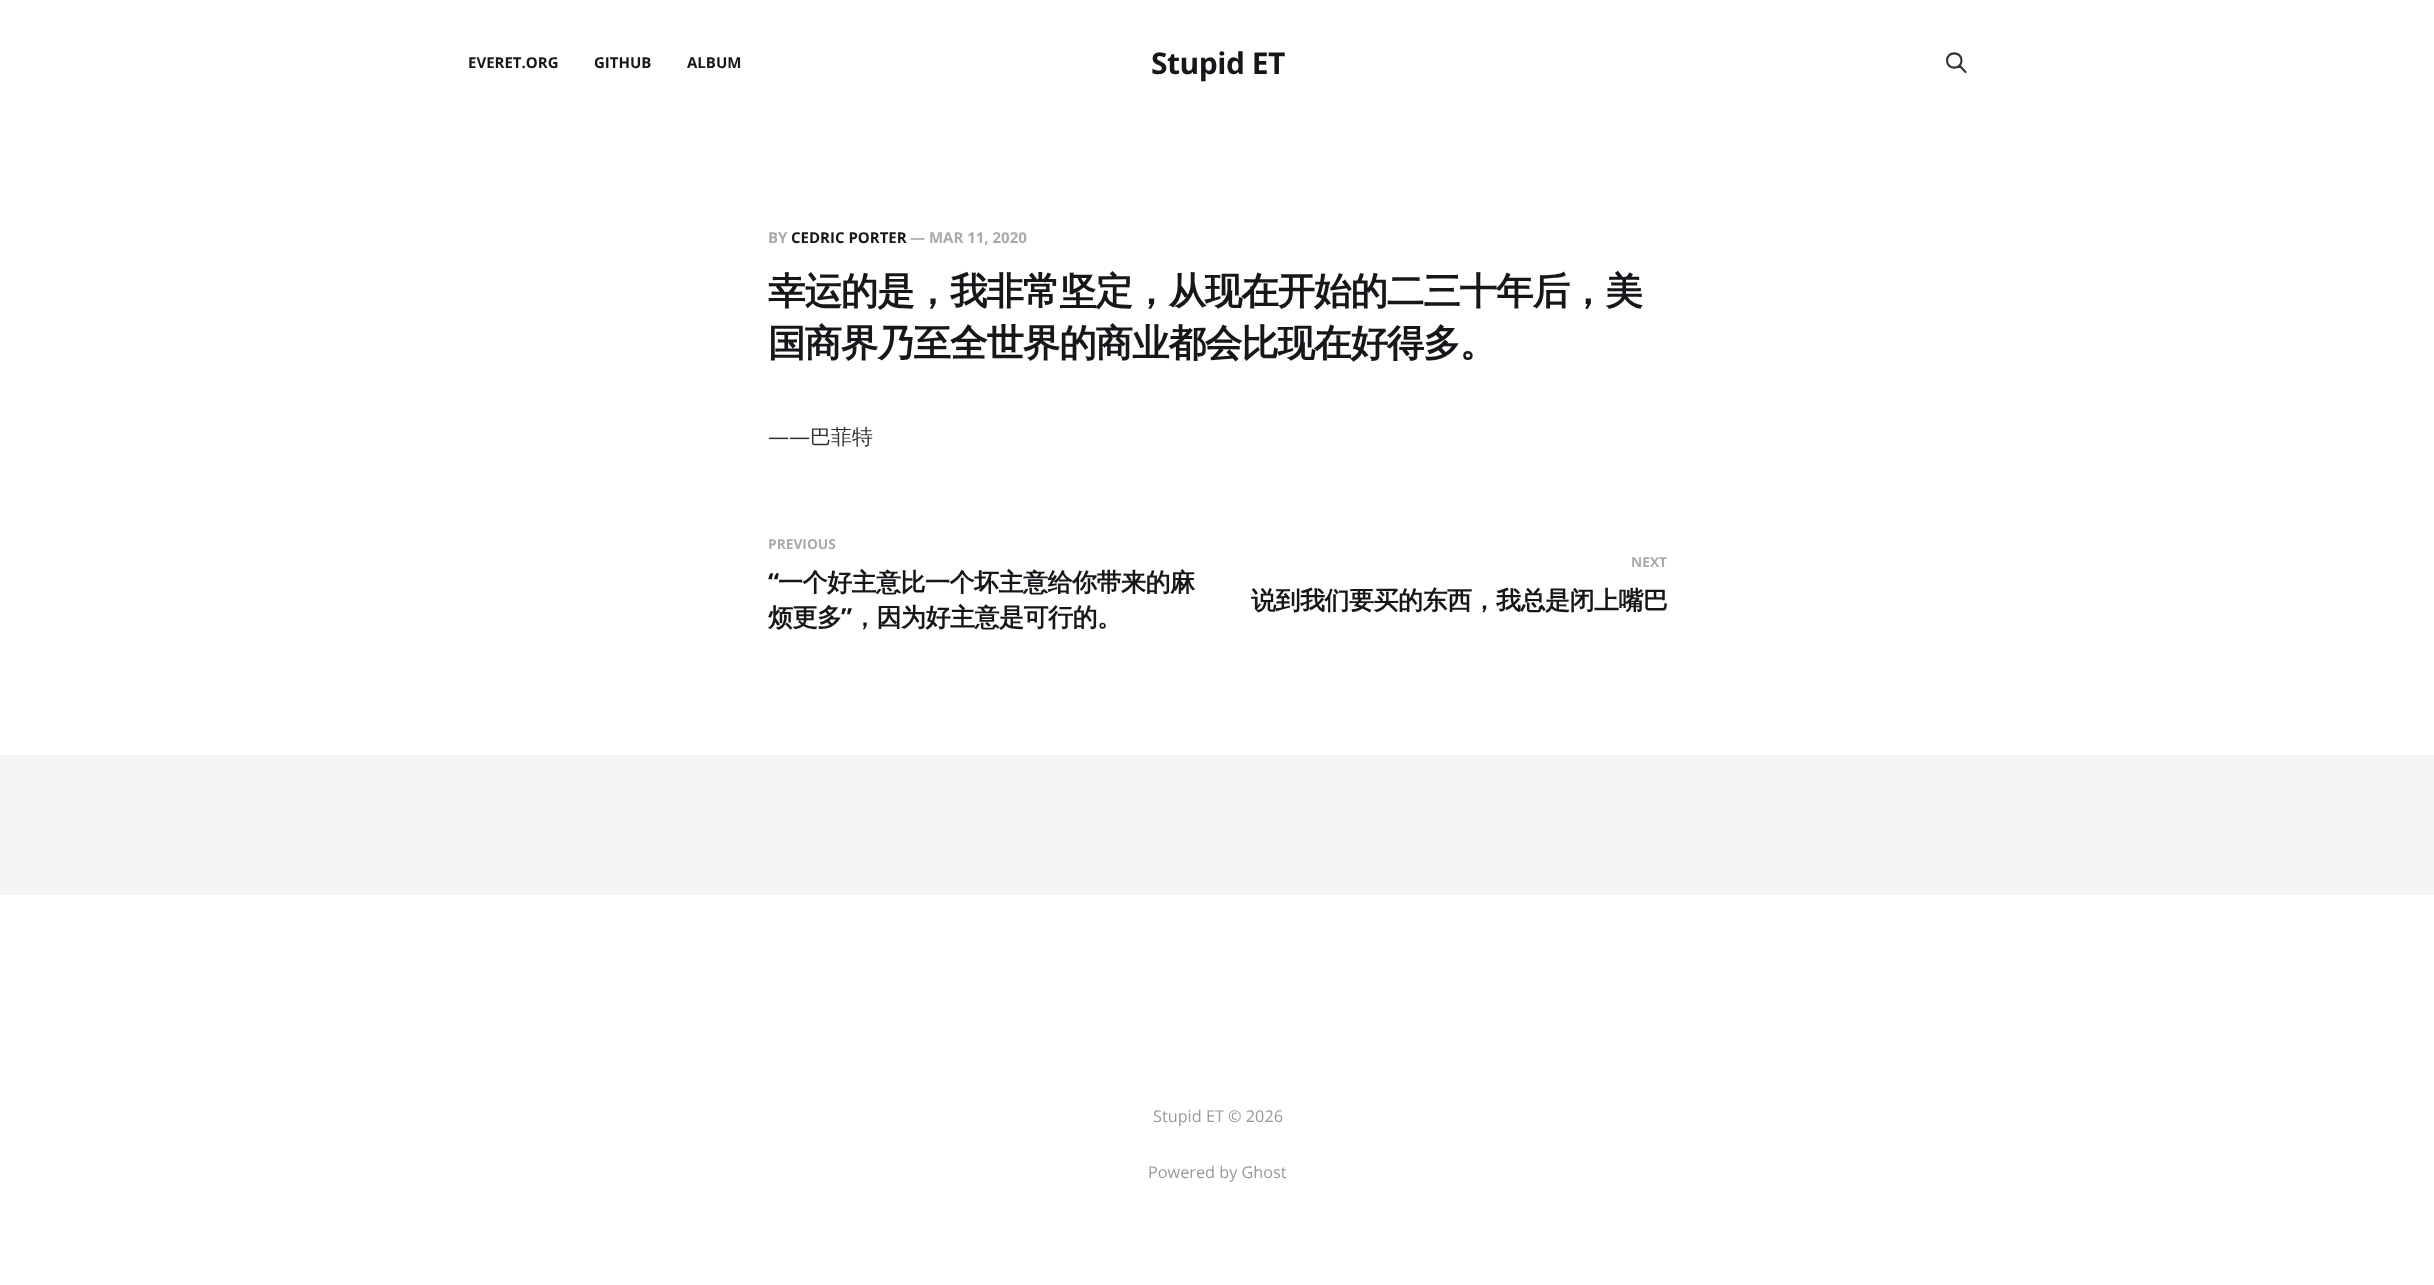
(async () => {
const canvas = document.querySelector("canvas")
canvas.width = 2434
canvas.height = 1285
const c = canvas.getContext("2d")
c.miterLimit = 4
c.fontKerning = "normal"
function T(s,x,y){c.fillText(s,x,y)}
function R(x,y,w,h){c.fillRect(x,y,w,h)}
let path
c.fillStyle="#fff"
R(0,0,2434,1285)
c.font="bold 15px Open Sans"
c.fillStyle="#15171a"
T("EVERET.ORG",468,68)
T("GITHUB",594,68)
T("ALBUM",687,68)
c.letterSpacing="-0.5px"
c.font="bold 30px Open Sans"
T("Stupid ET",1151,74)
path = new Path2D("M1965.5 72l-6-6.5m2-5c0 9.5-14.5 9.5-14.5 0c0-9.5 14.5-9.5 14.5 0z")
c.strokeStyle="#333"
c.lineWidth=2.1
c.lineCap="round"
c.lineJoin="round"
c.stroke(path)
c.letterSpacing="0px"
c.font="bold 15px Open Sans"
c.fillStyle="#aaa"
T("BY",768,243)
c.fillStyle="#15171a"
T("CEDRIC PORTER",791,243)
c.fillStyle="#aaa"
T("— MAR 11, 2020",910,243)
c.letterSpacing="-1.1px"
c.font="bold 37.5px WenQuanYi Zen Hei"
c.fillStyle="#15171a"
T("幸运的是，我非常坚定，从现在开始的二三十年后，美",768,304)
T("国商界乃至全世界的商业都会比现在好得多。",768,356)
c.letterSpacing="0px"
c.font="21px Open Sans"
c.fillStyle="#333"
T("——",768,444)
c.font="500 21px WenQuanYi Zen Hei"
T("巴菲特",810,444)
c.font="bold 13.75px Open Sans"
c.fillStyle="#aaa"
T("PREVIOUS",768,549)
c.letterSpacing="-0.5px"
c.font="bold 25px Open Sans"
c.fillStyle="#15171a"
T("“",768,591)
c.font="bold 25px WenQuanYi Zen Hei"
T("一个好主意比一个坏主意给你带来的麻",778,591)
T("烦更多",768,626)
c.font="bold 25px Open Sans"
T("”",841,626)
c.font="bold 25px WenQuanYi Zen Hei"
T("，因为好主意是可行的。",852,626)
c.letterSpacing="0px"
c.font="bold 13.75px Open Sans"
c.fillStyle="#aaa"
T("NEXT",1631,567)
c.letterSpacing="-0.5px"
c.font="bold 25px WenQuanYi Zen Hei"
c.fillStyle="#15171a"
T("说到我们要买的东西，我总是闭上嘴巴",1251,609)
c.fillStyle="#f4f4f4"
R(0,755,2434,140)
c.letterSpacing="0px"
c.font="16.25px Open Sans"
c.fillStyle="#999"
T("Stupid ET © 2026",1153,1122)
T("Powered by Ghost",1148,1178)
})()
